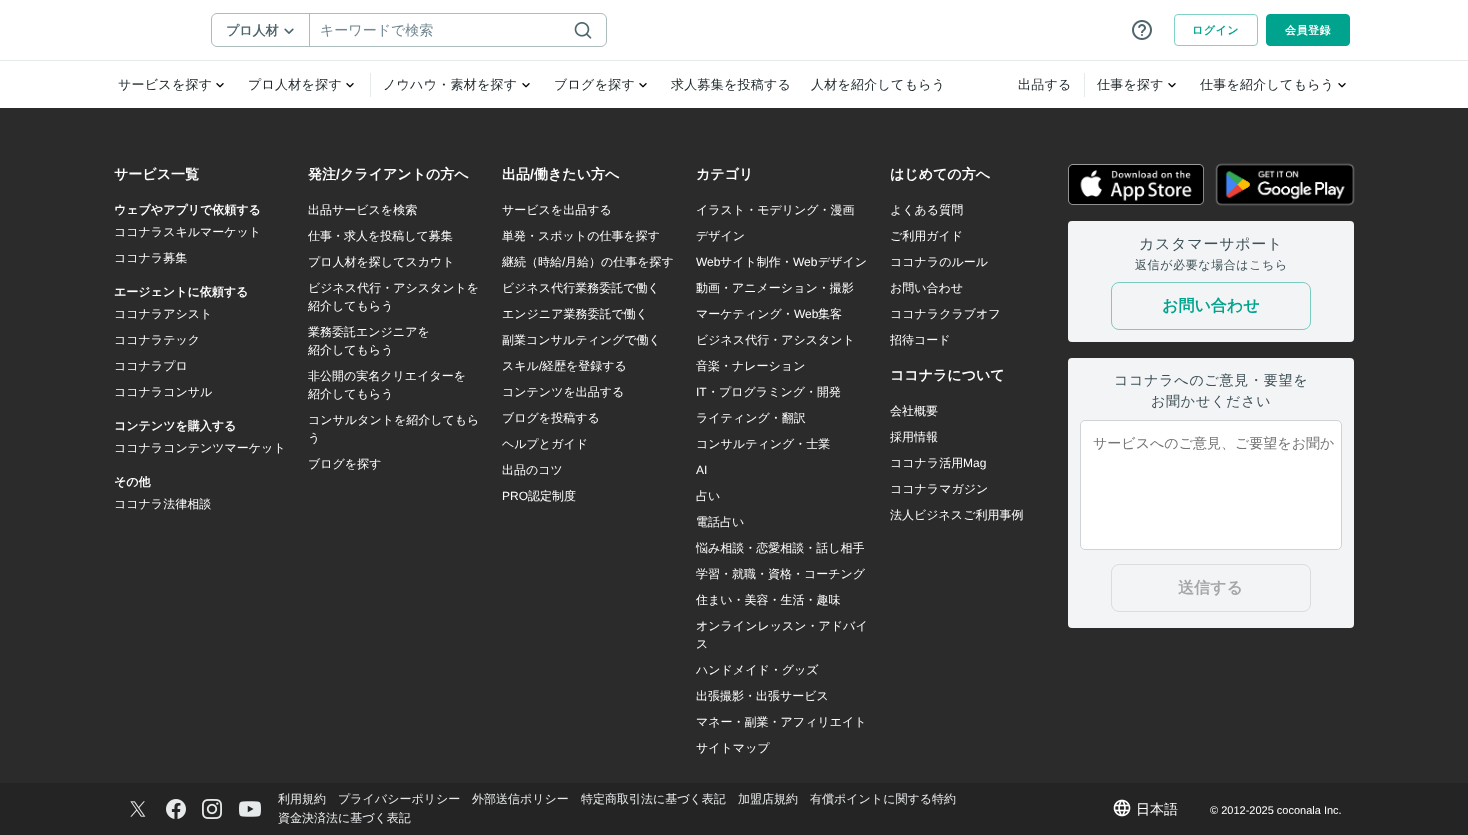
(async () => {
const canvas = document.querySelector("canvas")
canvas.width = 1468
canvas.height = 835
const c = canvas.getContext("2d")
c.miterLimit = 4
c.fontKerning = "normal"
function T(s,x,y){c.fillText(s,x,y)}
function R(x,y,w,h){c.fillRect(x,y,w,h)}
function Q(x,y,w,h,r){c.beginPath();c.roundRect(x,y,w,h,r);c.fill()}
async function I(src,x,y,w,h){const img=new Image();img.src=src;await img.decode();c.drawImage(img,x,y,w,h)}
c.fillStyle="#2b2b2b"
R(0,0,1468,835)
c.fillStyle="#fff"
R(0,0,1468,108)
c.beginPath()
c.roundRect(211.5,13.5,395,33,5.5)
c.strokeStyle="#acbbbc"
c.stroke()
c.font="bold 13px WenQuanYi Zen Hei"
c.fillStyle="#4d656d"
T("プロ人材",226,35)
await I("1.png",284,28,10,6)
c.fillStyle="#acbbbc"
R(309,14,1,32)
c.font="500 14px WenQuanYi Zen Hei"
c.fillStyle="#718790"
T("キーワードで検索",320,35)
await I("2.png",574,22,18,17)
await I("3.png",1132,20,20,20)
c.beginPath()
c.roundRect(1174.5,14.5,83,31,3.5)
c.strokeStyle="#80d1c6"
c.stroke()
c.letterSpacing="0.5px"
c.font="bold 11px WenQuanYi Zen Hei"
c.fillStyle="#00a38d"
T("ログイン",1192,34)
c.beginPath()
c.roundRect(1266.5,14.5,83,31,3.5)
c.fill()
c.strokeStyle="#00a38d"
c.stroke()
c.fillStyle="#fff"
T("会員登録",1285,34)
c.fillStyle="#e7eaeb"
R(0,60,1468,1)
c.letterSpacing="0.25px"
c.font="500 13px WenQuanYi Zen Hei"
c.fillStyle="#202a2e"
T("サービスを探す",118,89)
await I("4.png",216,83,8,5)
T("プロ人材を探す",248,89)
await I("4.png",346,83,8,5)
c.fillStyle="#e7eaeb"
R(370,73,1,24)
c.fillStyle="#202a2e"
T("ノウハウ・素材を探す",383,89)
await I("4.png",522,83,8,5)
T("ブログを探す",554,89)
await I("4.png",639,83,8,5)
T("求人募集を投稿する",671,89)
T("人材を紹介してもらう",811,89)
T("出品する",1018,89)
c.fillStyle="#e7eaeb"
R(1084,73,1,24)
c.fillStyle="#202a2e"
T("仕事を探す",1097,89)
await I("4.png",1168,83,8,5)
T("仕事を紹介してもらう",1200,89)
await I("4.png",1338,83,8,5)
c.letterSpacing="0px"
c.font="bold 14px WenQuanYi Zen Hei"
c.fillStyle="#fff"
T("サービス一覧",114,179)
c.font="bold 12px WenQuanYi Zen Hei"
T("ウェブやアプリで依頼する",114,214)
c.font="500 12px WenQuanYi Zen Hei"
T("ココナラスキルマーケット",114,236)
T("ココナラ募集",114,262)
c.font="bold 12px WenQuanYi Zen Hei"
T("エージェントに依頼する",114,296)
c.font="500 12px WenQuanYi Zen Hei"
T("ココナラアシスト",114,318)
T("ココナラテック",114,344)
T("ココナラプロ",114,370)
T("ココナラコンサル",114,396)
c.font="bold 12px WenQuanYi Zen Hei"
T("コンテンツを購入する",114,430)
c.font="500 12px WenQuanYi Zen Hei"
T("ココナラコンテンツマーケット",114,452)
c.font="bold 12px WenQuanYi Zen Hei"
T("その他",114,486)
c.font="500 12px WenQuanYi Zen Hei"
T("ココナラ法律相談",114,508)
c.font="bold 14px WenQuanYi Zen Hei"
T("発注",308,179)
c.font="bold 14px Liberation Sans"
T("/",336,179)
c.font="bold 14px WenQuanYi Zen Hei"
T("クライアントの方へ",340,179)
c.font="500 12px WenQuanYi Zen Hei"
T("出品サービスを検索",308,214)
T("仕事・求人を投稿して募集",308,240)
T("プロ人材を探してスカウト",308,266)
T("ビジネス代行・アシスタントを",308,292)
T("紹介してもらう",308,310)
T("業務委託エンジニアを",308,336)
T("紹介してもらう",308,354)
T("非公開の実名クリエイターを",308,380)
T("紹介してもらう",308,398)
T("コンサルタントを紹介してもら",308,424)
T("う",308,442)
T("ブログを探す",308,468)
c.font="bold 14px WenQuanYi Zen Hei"
T("出品",502,179)
c.font="bold 14px Liberation Sans"
T("/",530,179)
c.font="bold 14px WenQuanYi Zen Hei"
T("働きたい方へ",534,179)
c.font="500 12px WenQuanYi Zen Hei"
T("サービスを出品する",502,214)
T("単発・スポットの仕事を探す",502,240)
T("継続（時給",502,266)
c.font="12px Liberation Sans"
T("/",562,266)
c.font="500 12px WenQuanYi Zen Hei"
T("月給）の仕事を探す",565,266)
T("ビジネス代行業務委託で働く",502,292)
T("エンジニア業務委託で働く",502,318)
T("副業コンサルティングで働く",502,344)
T("スキル",502,370)
c.font="12px Liberation Sans"
T("/",539,370)
c.font="500 12px WenQuanYi Zen Hei"
T("経歴を登録する",542,370)
T("コンテンツを出品する",502,396)
T("ブログを投稿する",502,422)
T("ヘルプとガイド",502,448)
T("出品のコツ",502,474)
c.font="12px Liberation Sans"
T("PRO",502,500)
c.font="500 12px WenQuanYi Zen Hei"
T("認定制度",528,500)
c.font="bold 14px WenQuanYi Zen Hei"
T("カテゴリ",696,179)
c.font="500 12px WenQuanYi Zen Hei"
T("イラスト・モデリング・漫画",696,214)
T("デザイン",696,240)
c.font="12px Liberation Sans"
T("Web",696,266)
c.font="500 12px WenQuanYi Zen Hei"
T("サイト制作・",720,266)
c.font="12px Liberation Sans"
T("Web",793,266)
c.font="500 12px WenQuanYi Zen Hei"
T("デザイン",818,266)
T("動画・アニメーション・撮影",696,292)
T("マーケティング・",696,318)
c.font="12px Liberation Sans"
T("Web",794,318)
c.font="500 12px WenQuanYi Zen Hei"
T("集客",818,318)
T("ビジネス代行・アシスタント",696,344)
T("音楽・ナレーション",696,370)
c.font="12px Liberation Sans"
T("IT",696,396)
c.font="500 12px WenQuanYi Zen Hei"
T("・プログラミング・開発",707,396)
T("ライティング・翻訳",696,422)
T("コンサルティング・士業",696,448)
c.font="12px Liberation Sans"
T("AI",696,474)
c.font="500 12px WenQuanYi Zen Hei"
T("占い",696,500)
T("電話占い",696,526)
T("悩み相談・恋愛相談・話し相手",696,552)
T("学習・就職・資格・コーチング",696,578)
T("住まい・美容・生活・趣味",696,604)
T("オンラインレッスン・アドバイ",696,630)
T("ス",696,648)
T("ハンドメイド・グッズ",696,674)
T("出張撮影・出張サービス",696,700)
T("マネー・副業・アフィリエイト",696,726)
T("サイトマップ",696,752)
c.font="bold 14px WenQuanYi Zen Hei"
T("はじめての方へ",890,179)
c.font="500 12px WenQuanYi Zen Hei"
T("よくある質問",890,214)
T("ご利用ガイド",890,240)
T("ココナラのルール",890,266)
T("お問い合わせ",890,292)
T("ココナラクラブオフ",890,318)
T("招待コード",890,344)
c.font="bold 14px WenQuanYi Zen Hei"
T("ココナラについて",890,380)
c.font="500 12px WenQuanYi Zen Hei"
T("会社概要",890,415)
T("採用情報",890,441)
T("ココナラ活用",890,467)
c.font="12px Liberation Sans"
T("Mag",963,467)
c.font="500 12px WenQuanYi Zen Hei"
T("ココナラマガジン",890,493)
T("法人ビジネスご利用事例",890,519)
await I("5.png",1068,164,136,41)
await I("6.png",1215,163,140,43)
c.fillStyle="#f3f4f5"
Q(1068,221,286,121,4)
c.letterSpacing="0.75px"
c.font="500 15px WenQuanYi Zen Hei"
c.fillStyle="#3e5158"
T("カスタマーサポート",1139,249)
c.letterSpacing="0.6px"
c.font="500 12px WenQuanYi Zen Hei"
T("返信が必要な場合はこちら",1135,269)
c.beginPath()
c.roundRect(1111.5,282.5,199,47,7.5)
c.strokeStyle="#7accc1"
c.stroke()
c.letterSpacing="0px"
c.font="bold 16px WenQuanYi Zen Hei"
c.fillStyle="#00a38d"
T("お問い合わせ",1162,311)
c.fillStyle="#f3f4f5"
Q(1068,358,286,270,4)
c.letterSpacing="0.75px"
c.font="500 14px WenQuanYi Zen Hei"
c.fillStyle="#3e5158"
T("ココナラへのご意見・要望を",1114,385)
T("お聞かせください",1151,406)
c.fillStyle="#fff"
c.beginPath()
c.roundRect(1080.5,420.5,261,129,4.5)
c.fill()
c.strokeStyle="#ced4d6"
c.stroke()
c.letterSpacing="0px"
c.fillStyle="#757575"
T("サービスへのご意見、ご要望をお聞か",1093,448)
c.beginPath()
c.roundRect(1111.5,564.5,199,47,7.5)
c.strokeStyle="#dadcdd"
c.stroke()
c.font="bold 16px WenQuanYi Zen Hei"
c.fillStyle="#a3a7a9"
T("送信する",1178,593)
c.fillStyle="#242424"
R(0,783,1468,52)
await I("7.png",130,801,16,16)
await I("8.png",166,799,20,20)
await I("9.png",202,799,20,20)
await I("10.png",239,801,22,16)
c.font="500 12px WenQuanYi Zen Hei"
c.fillStyle="#e7eaeb"
T("利用規約",278,803)
T("プライバシーポリシー",338,803)
T("外部送信ポリシー",472,803)
T("特定商取引法に基づく表記",581,803)
T("加盟店規約",738,803)
T("有償ポイントに関する特約",810,803)
T("資金決済法に基づく表記",278,822)
await I("11.png",1113,799,18,18)
c.font="500 14px WenQuanYi Zen Hei"
c.fillStyle="#fff"
T("日本語",1136,814)
c.font="11px Liberation Sans"
T("© 2012-2025 coconala Inc.",1210,814)
})()
